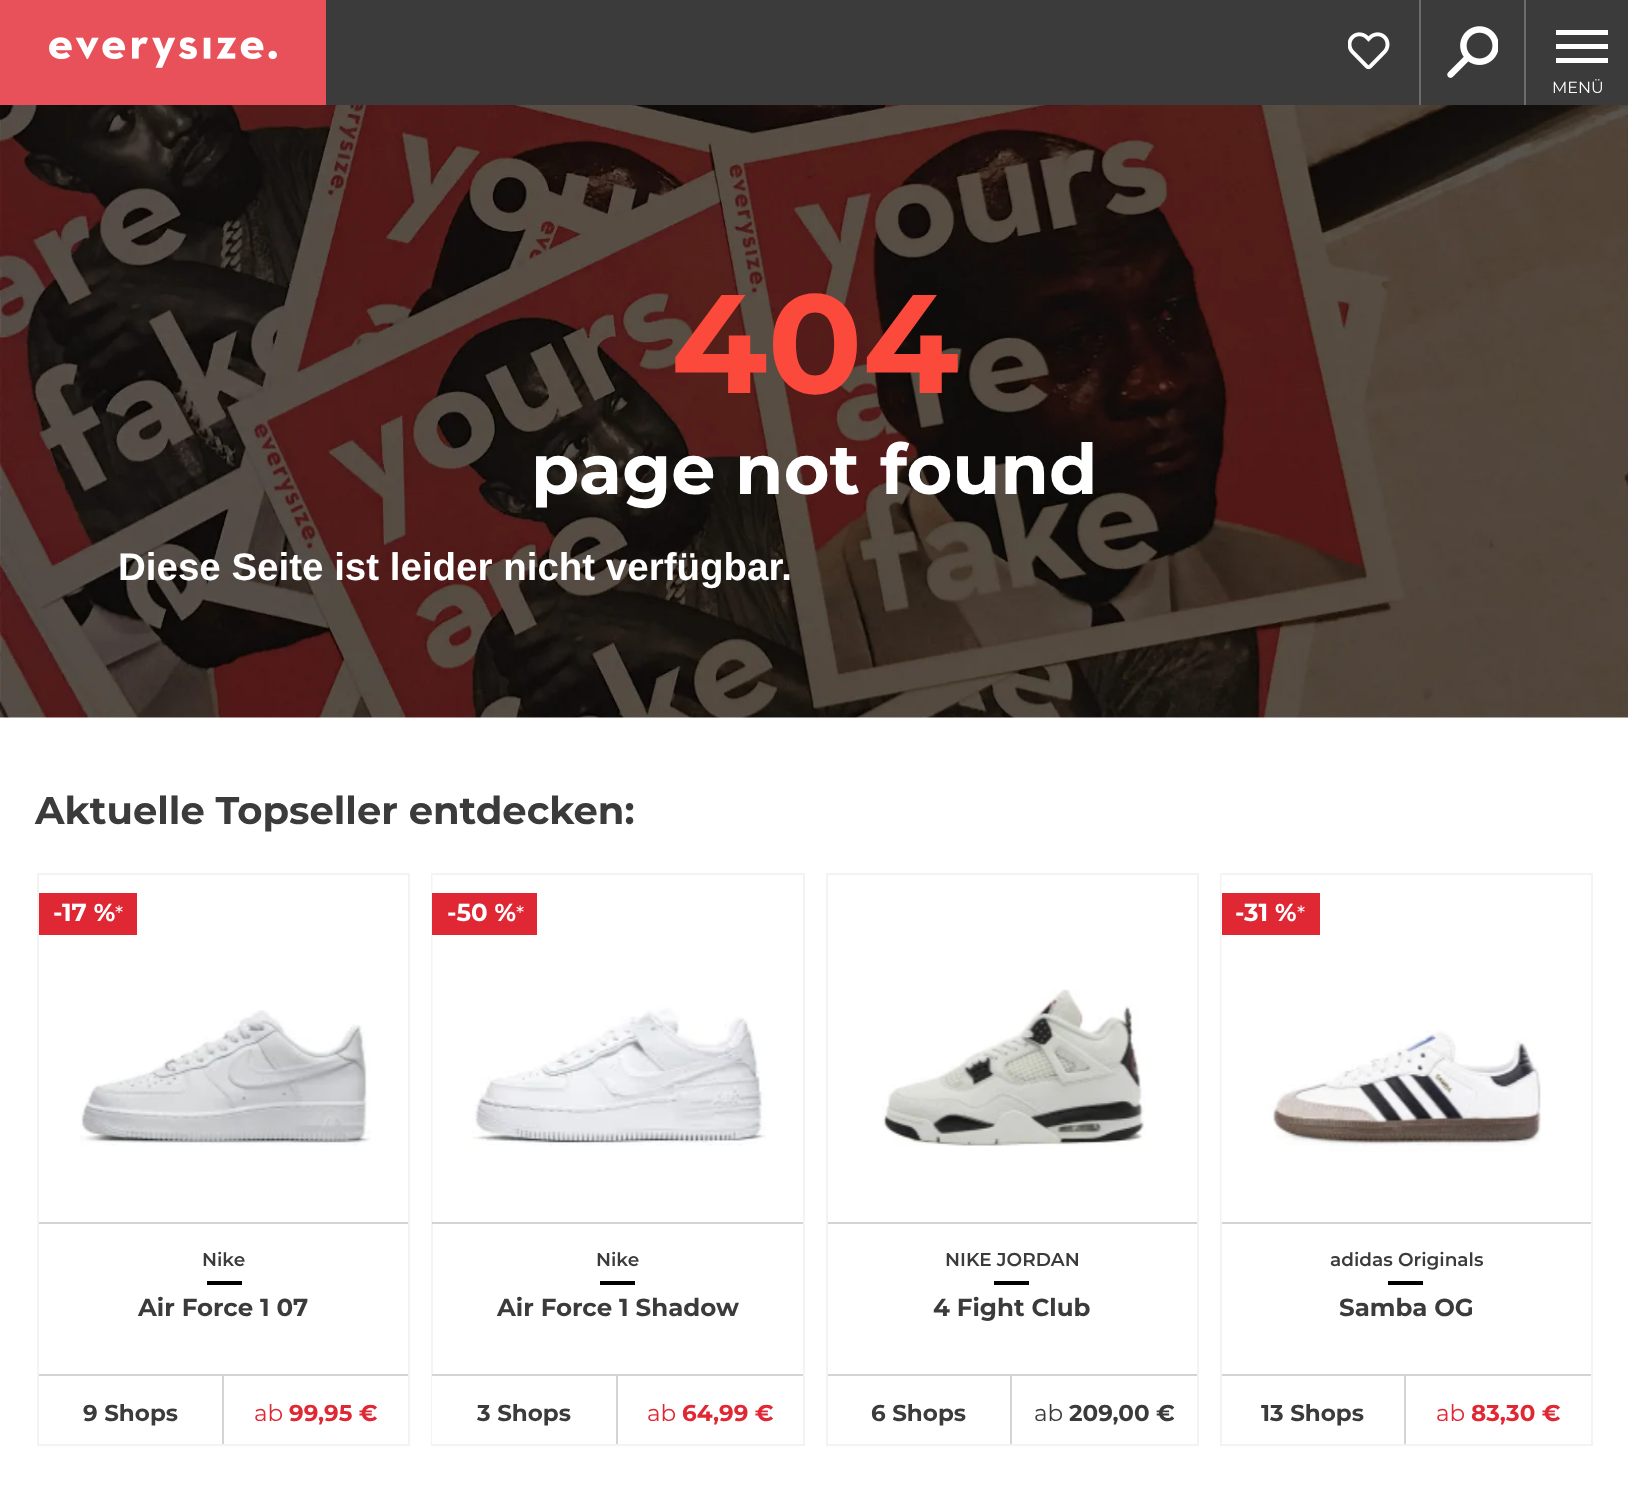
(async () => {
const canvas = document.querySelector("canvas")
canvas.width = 1628
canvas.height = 1491
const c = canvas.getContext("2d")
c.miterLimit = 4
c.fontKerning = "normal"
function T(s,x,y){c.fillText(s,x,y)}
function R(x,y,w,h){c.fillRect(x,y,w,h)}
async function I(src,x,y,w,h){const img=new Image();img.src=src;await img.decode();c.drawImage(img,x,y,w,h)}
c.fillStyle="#fff"
R(0,0,1628,1491)
c.fillStyle="#3b3b3b"
R(326,0,1302,105)
c.fillStyle="#e85159"
R(0,0,326,105)
await I("1.png",49,37,228,31)
await I("2.png",1348,32,42,38)
await I("3.png",1447,26,51,52)
c.fillStyle="#6c6c6c"
R(1419,0,2,105)
R(1524,0,2,105)
c.fillStyle="#fff"
R(1556,44,52,5)
R(1556,30,52,5)
R(1556,58,52,5)
c.font="16px Montserrat"
T("MENÜ",1552,93)
await I("4.png",0,105,1628,613)
c.font="bold 140px Montserrat"
c.fillStyle="#fb493b"
T("404",671,393)
c.font="bold 70px Montserrat"
c.fillStyle="#fff"
T("page not found",531,494)
c.font="bold 38.5px Liberation Sans"
T("Diese Seite ist leider nicht verfügbar.",118,580)
c.font="bold 38.5px Montserrat"
c.fillStyle="#3b3b3b"
T("Aktuelle Topseller entdecken:",35,824)
c.strokeStyle="#f3f3f3"
c.lineWidth=2
c.strokeRect(38,874,371,571)
c.fillStyle="#d4d4d4"
R(39,1374,369,2)
c.fillStyle="#e02835"
R(39,893,98,42)
c.font="bold 24.5px Montserrat"
c.fillStyle="#fff"
T("-17 %",53,921)
c.font="21px Montserrat"
T("*",115,921)
c.fillStyle="#d4d4d4"
R(222,1376,2,68)
c.font="bold 23px Montserrat"
c.fillStyle="#3b3b3b"
T("9 Shops",83,1421)
c.font="23px Montserrat"
c.fillStyle="#e02835"
T("ab",254,1421)
c.font="bold 23px Montserrat"
T("99,95 €",289,1421)
await I("5.png",80,1010,291,136)
c.fillStyle="#d4d4d4"
R(39,1222,369,2)
c.font="600 18.5px Montserrat"
c.fillStyle="#3b3b3b"
T("Nike",202,1266)
c.fillStyle="#000"
R(207,1281,35,4)
c.font="bold 24.5px Montserrat"
c.fillStyle="#3b3b3b"
T("Air Force 1 07",138,1316)
c.strokeRect(432,874,372,571)
await I("6.png",432,875,334,346)
c.fillStyle="#fff"
R(432,1376,1,68)
c.fillStyle="#d4d4d4"
R(432,1374,371,2)
c.fillStyle="#e02835"
R(432,893,105,42)
c.fillStyle="#fff"
T("-50 %",447,921)
c.font="21px Montserrat"
T("*",516,921)
c.fillStyle="#d4d4d4"
R(616,1376,2,68)
c.font="bold 23px Montserrat"
c.fillStyle="#3b3b3b"
T("3 Shops",477,1421)
c.font="23px Montserrat"
c.fillStyle="#e02835"
T("ab",647,1421)
c.font="bold 23px Montserrat"
T("64,99 €",682,1421)
c.fillStyle="#d4d4d4"
R(432,1222,371,2)
c.font="600 18.5px Montserrat"
c.fillStyle="#3b3b3b"
T("Nike",596,1266)
c.fillStyle="#000"
R(600,1281,35,4)
c.font="bold 24.5px Montserrat"
c.fillStyle="#3b3b3b"
T("Air Force 1 Shadow",497,1316)
c.strokeRect(827,874,371,571)
await I("7.png",882,989,264,157)
c.fillStyle="#d4d4d4"
R(828,1222,369,2)
c.font="600 18.5px Montserrat"
c.fillStyle="#3b3b3b"
T("NIKE JORDAN",945,1266)
c.fillStyle="#000"
R(994,1281,35,4)
c.font="bold 24.5px Montserrat"
c.fillStyle="#3b3b3b"
T("4 Fight Club",933,1316)
c.fillStyle="#d4d4d4"
R(828,1374,369,2)
R(1010,1376,2,68)
c.font="bold 23px Montserrat"
c.fillStyle="#3b3b3b"
T("6 Shops",871,1421)
c.font="23px Montserrat"
T("ab",1034,1421)
c.font="bold 23px Montserrat"
T("209,00 €",1069,1421)
c.strokeRect(1221,874,371,571)
await I("8.png",1221,875,320,346)
c.fillStyle="#d4d4d4"
R(1222,1374,369,2)
c.fillStyle="#e02835"
R(1222,893,98,42)
c.font="bold 24.5px Montserrat"
c.fillStyle="#fff"
T("-31 %",1235,921)
c.font="21px Montserrat"
T("*",1297,921)
c.fillStyle="#d4d4d4"
R(1404,1376,2,68)
c.font="bold 23px Montserrat"
c.fillStyle="#3b3b3b"
T("13 Shops",1261,1421)
c.font="23px Montserrat"
c.fillStyle="#e02835"
T("ab",1436,1421)
c.font="bold 23px Montserrat"
T("83,30 €",1471,1421)
c.fillStyle="#d4d4d4"
R(1222,1222,369,2)
c.font="600 18.5px Montserrat"
c.fillStyle="#3b3b3b"
T("adidas Originals",1330,1266)
c.fillStyle="#000"
R(1388,1281,35,4)
c.font="bold 24.5px Montserrat"
c.fillStyle="#3b3b3b"
T("Samba OG",1339,1316)
})()
